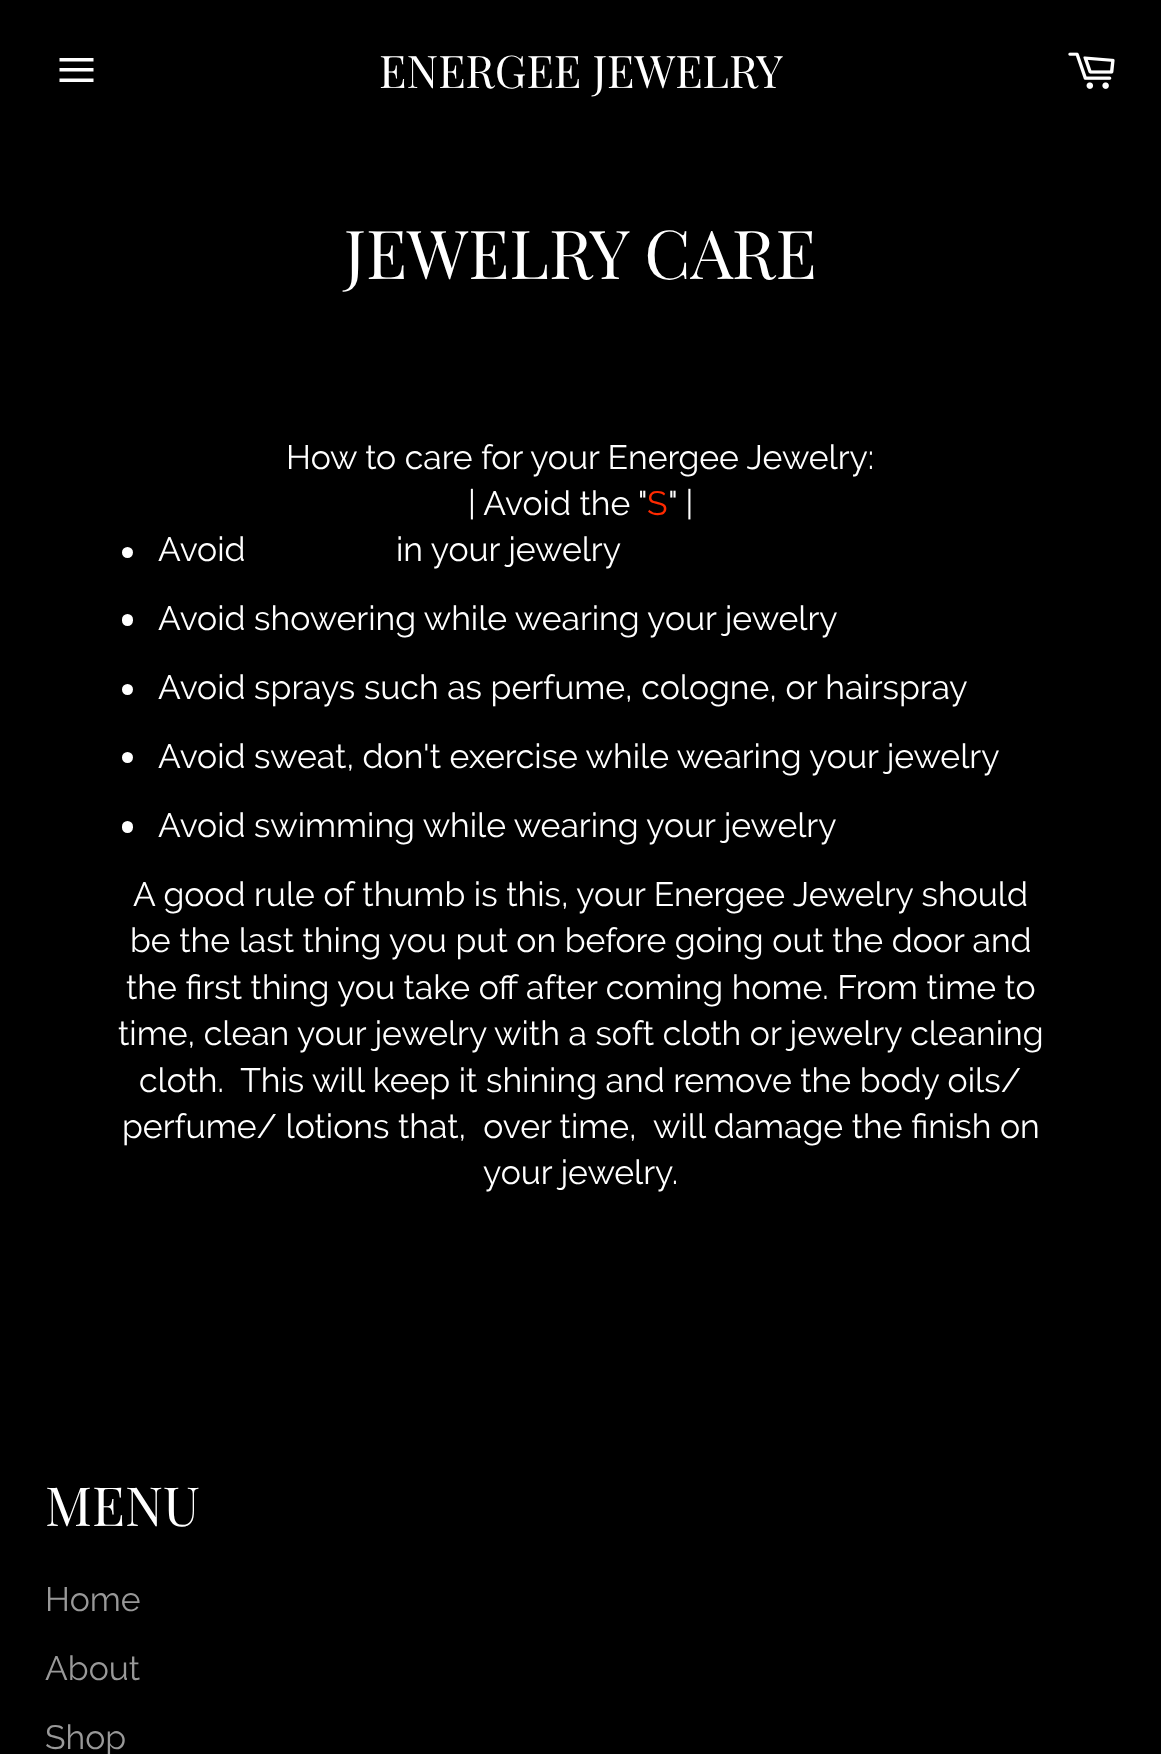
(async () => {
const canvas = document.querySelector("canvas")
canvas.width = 1161
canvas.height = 1754
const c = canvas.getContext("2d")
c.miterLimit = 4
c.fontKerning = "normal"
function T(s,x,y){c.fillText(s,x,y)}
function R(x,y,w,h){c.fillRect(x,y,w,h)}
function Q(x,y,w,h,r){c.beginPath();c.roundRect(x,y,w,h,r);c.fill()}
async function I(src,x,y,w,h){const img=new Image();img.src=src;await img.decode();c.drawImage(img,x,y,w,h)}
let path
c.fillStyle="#000"
R(0,0,1161,1754)
c.fillStyle="#fff"
path = new Path2D("M59.5 68h34v3.5h-34zm0-10h34v3.5h-34zm0 20.5h34v3.5h-34z")
c.fill(path)
c.font="45px Playfair Display"
T("ENERGEE JEWELRY",379,88)
await I("1.png",1068,52,47,37)
c.font="67.5px Playfair Display"
T("JEWELRY CARE",344,279)
c.font="33.75px Raleway"
T("How to care for your Energee Jewelry:",286,469)
T("| Avoid the \"",468,515)
c.fillStyle="#ff2a00"
T("S",647,515)
c.fillStyle="#fff"
T("\" |",668,515)
c.beginPath()
c.arc(127.5,552.5,5.5,0,7)
c.fill()
T("Avoid",158,561)
T("in your jewelry",396,561)
Q(122,614,11,12,5.5)
T("Avoid showering while wearing your jewelry",158,630)
c.beginPath()
c.arc(127.5,689.5,5.5,0,7)
c.fill()
T("Avoid sprays such as perfume, cologne, or hairspray",158,699)
c.beginPath()
c.arc(127.5,757.5,5.5,0,7)
c.fill()
T("Avoid sweat, don't exercise while wearing your jewelry",158,768)
Q(122,821,11,12,5.5)
T("Avoid swimming while wearing your jewelry",158,837)
T("A good rule of thumb is this, your Energee Jewelry should",133,906)
T("be the last thing you put on before going out the door and",130,952)
T("the first thing you take off after coming home. From time to",126,999)
T("time, clean your jewelry with a soft cloth or jewelry cleaning",118,1045)
T("cloth.  This will keep it shining and remove the body oils/",139,1092)
T("perfume/ lotions that,  over time,  will damage the finish on",122,1138)
T("your jewelry.",483,1184)
c.font="54px Playfair Display"
T("MENU",45,1526)
c.font="33.75px Raleway"
c.fillStyle="#999"
T("Home",45,1611)
T("About",45,1680)
T("Shop",45,1749)
})()
